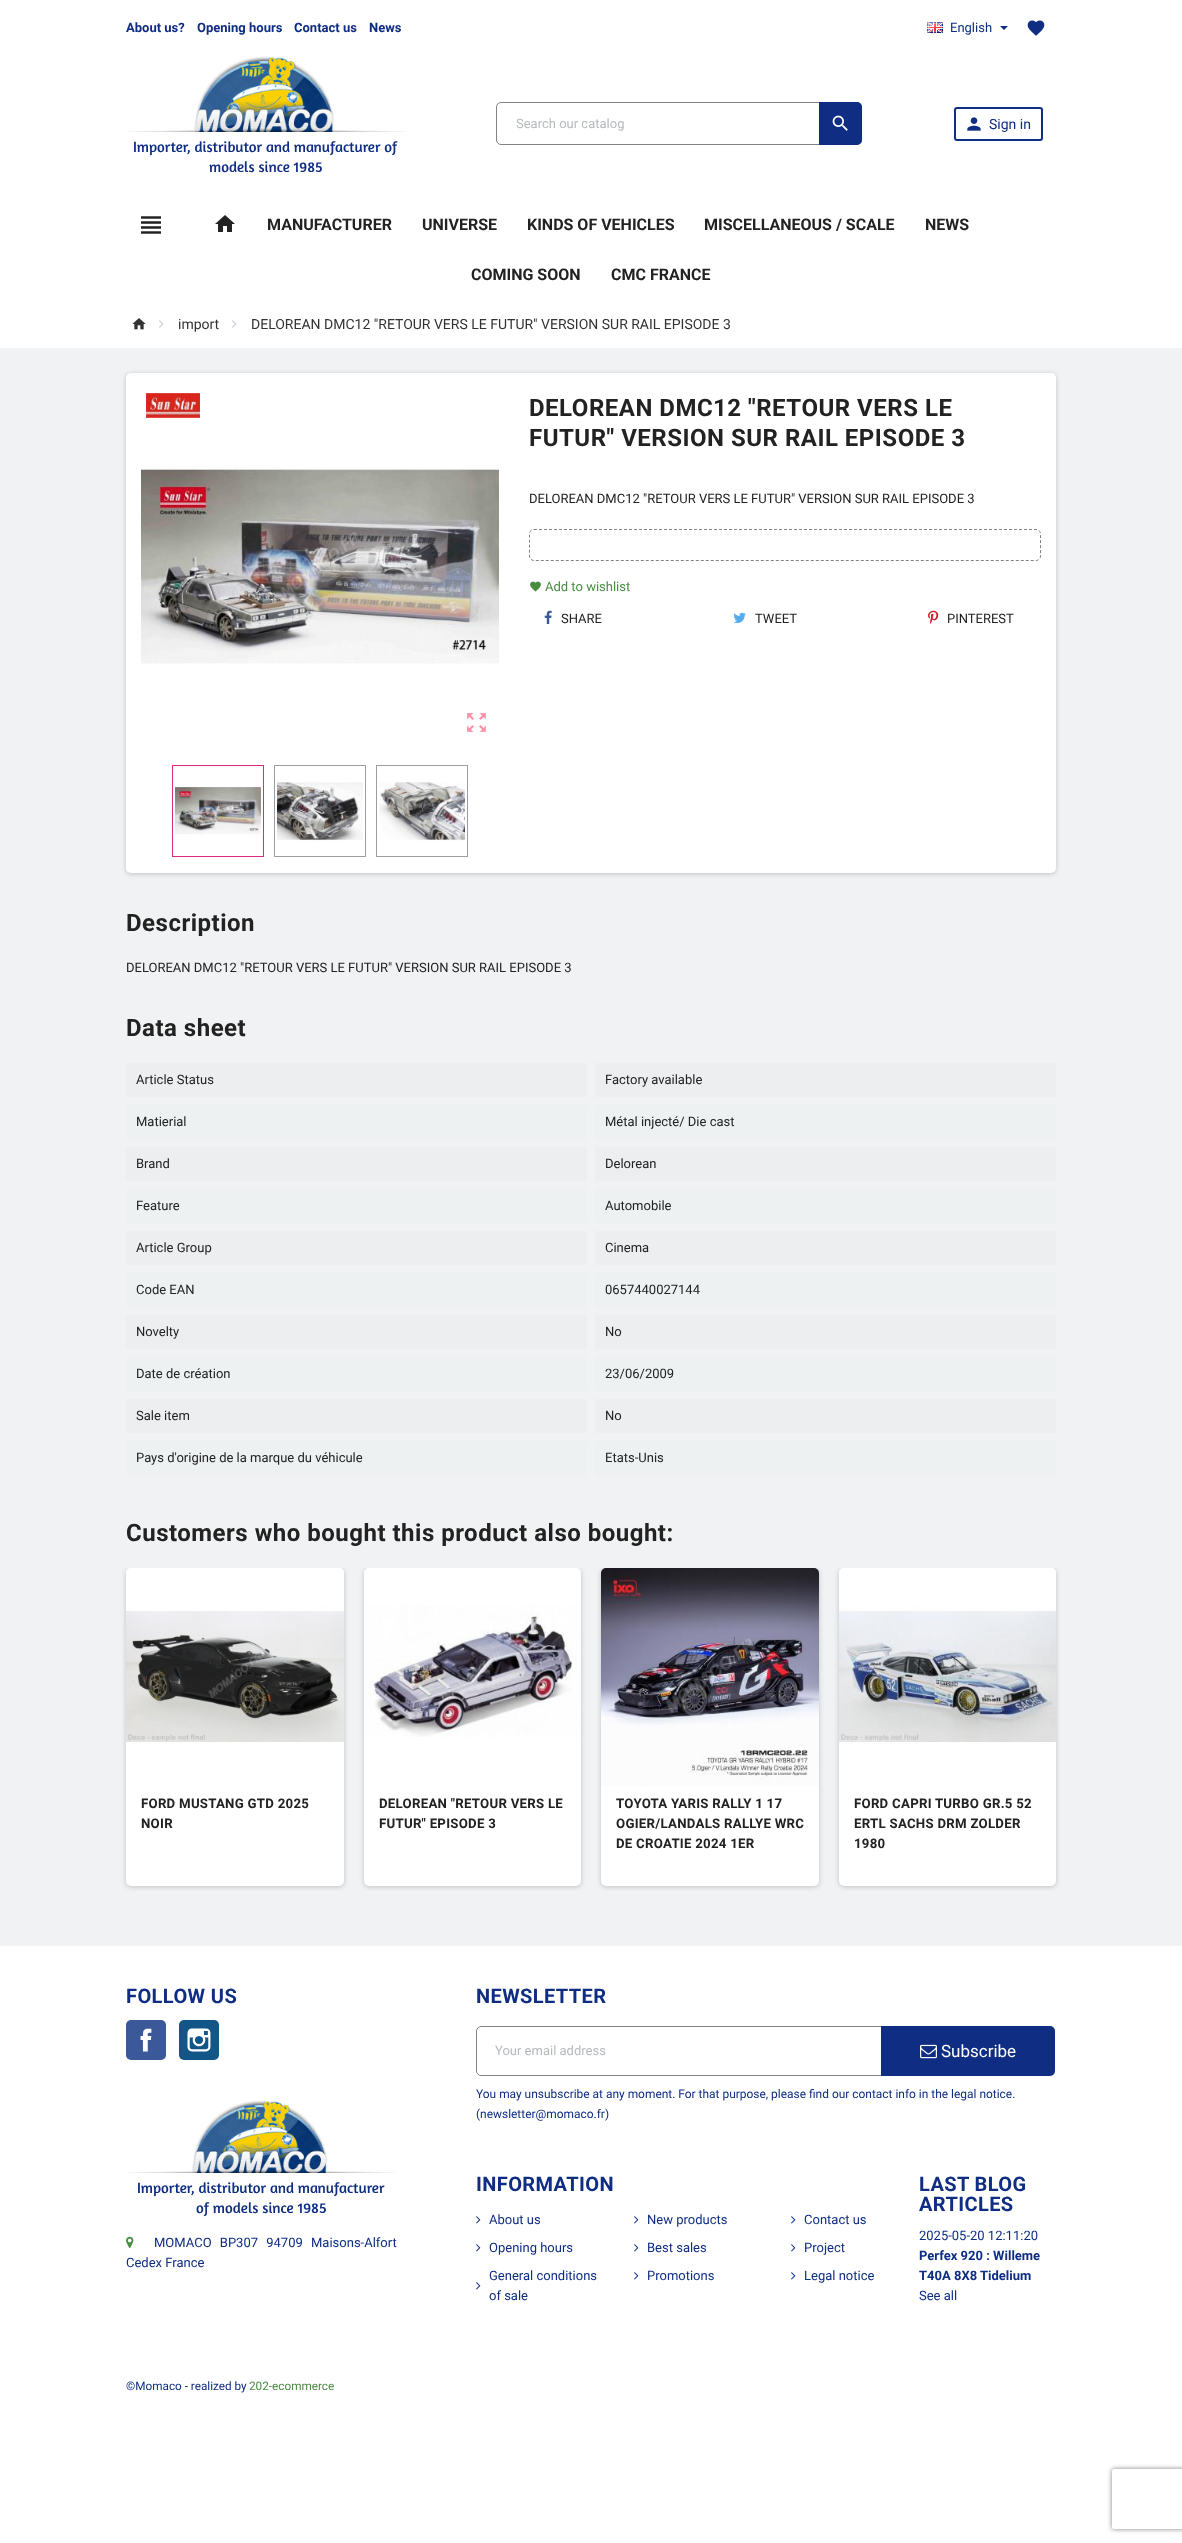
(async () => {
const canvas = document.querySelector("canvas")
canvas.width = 1182
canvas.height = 2543
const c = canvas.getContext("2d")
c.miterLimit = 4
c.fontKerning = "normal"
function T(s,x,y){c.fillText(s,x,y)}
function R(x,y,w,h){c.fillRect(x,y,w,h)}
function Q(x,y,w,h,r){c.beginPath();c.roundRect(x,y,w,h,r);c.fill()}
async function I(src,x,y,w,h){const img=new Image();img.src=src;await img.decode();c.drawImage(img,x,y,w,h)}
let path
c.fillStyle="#fff"
R(0,0,1182,2543)
c.font="bold 13px Roboto"
c.fillStyle="#0e2d83"
T("About us?",126,32)
T("Opening hours",197,32)
T("Contact us",294,32)
T("News",369,32)
await I("1.png",927,22,16,11)
c.font="13px Roboto"
T("English",950,32)
path = new Path2D("M1000 26h8l-4 4z")
c.fill(path)
await I("2.png",1027,20,18,16)
c.beginPath()
c.roundRect(496.5,102.5,365,42,4.5)
c.strokeStyle="#828385"
c.stroke()
c.fillStyle="#b6babe"
T("Search our catalog",516,128)
c.fillStyle="#0e2d83"
c.beginPath()
c.roundRect(819,102,43,43,[0,5,5,0])
c.fill()
await I("3.png",832,115,16,16)
c.beginPath()
c.roundRect(955,108,87,32,2)
c.strokeStyle="#0e2d83"
c.lineWidth=2
c.stroke()
await I("4.png",967,117,14,14)
c.font="14px Roboto"
T("Sign in",989,129)
await I("5.png",126,56,279,76)
c.font="15px Amaranth"
T("Importer, distributor and manufacturer of",133,152)
T("models since 1985",209,172)
await I("6.png",141,216,20,18)
await I("7.png",215,215,20,17)
c.font="bold 16px 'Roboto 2'"
c.fillStyle="#222"
T("MANUFACTURER",267,230)
T("UNIVERSE",422,230)
T("KINDS OF VEHICLES",527,230)
T("MISCELLANEOUS / SCALE",704,230)
T("NEWS",925,230)
T("COMING SOON",471,280)
T("CMC FRANCE",611,280)
await I("8.png",132,318,14,12)
await I("9.png",159,320,5,8)
c.font="14px Roboto"
c.fillStyle="#333"
T("import",178,329)
await I("9.png",232,320,5,8)
T("DELOREAN DMC12 \"RETOUR VERS LE FUTUR\" VERSION SUR RAIL EPISODE 3",251,329)
c.fillStyle="#f1f2f4"
R(0,348,1182,1598)
c.fillStyle="#00000033"
c.filter="blur(2.5px)"
c.beginPath()
c.roundRect(126,374,930,500,5)
c.fill()
c.filter="none"
c.fillStyle="#fff"
Q(126,373,930,500,5)
await I("10.png",146,393,54,25)
await I("11.png",141,469,358,195)
await I("12.png",467,713,19,19)
c.strokeStyle="#dd2a81"
c.lineWidth=1
c.strokeRect(172.5,765.5,91,91)
await I("13.png",175,787,86,49)
c.strokeStyle="#9c9d9e"
c.strokeRect(274.5,765.5,91,91)
await I("14.png",277,782,86,60)
c.strokeRect(376.5,765.5,91,91)
await I("15.png",379,782,86,60)
c.letterSpacing="0.5px"
c.font="bold 24px 'Roboto 2'"
c.fillStyle="#222"
T("DELOREAN DMC12 \"RETOUR VERS LE",529,416)
T("FUTUR\" VERSION SUR RAIL EPISODE 3",529,446)
c.letterSpacing="0px"
c.font="13px Roboto"
T("DELOREAN DMC12 \"RETOUR VERS LE FUTUR\" VERSION SUR RAIL EPISODE 3",529,503)
path = new Path2D("M534 529.5h502c2.5 0 4.5 2 4.5 4.5v22c0 2.5-2 4.5-4.5 4.5h-502c-2.5 0-4.5-2-4.5-4.5v-22c0-2.5 2-4.5 4.5-4.5z")
c.strokeStyle="#828385"
c.setLineDash([3,2])
c.stroke(path)
await I("16.png",530,581,11,11)
c.fillStyle="#488c40"
T("Add to wishlist",545,591)
await I("17.png",544,610,8,14)
c.fillStyle="#222"
T("SHARE",561,623)
await I("18.png",733,612,13,11)
T("TWEET",755,623)
await I("19.png",928,610,11,14)
T("PINTEREST",947,623)
c.letterSpacing="0.5px"
c.font="bold 24px 'Roboto 2'"
T("Description",126,931)
c.letterSpacing="0px"
c.font="13px Roboto"
T("DELOREAN DMC12 \"RETOUR VERS LE FUTUR\" VERSION SUR RAIL EPISODE 3",126,972)
c.letterSpacing="0.5px"
c.font="bold 24px 'Roboto 2'"
T("Data sheet",126,1036)
c.fillStyle="#eceeef"
R(126,1063,461,34)
c.letterSpacing="0px"
c.font="13px Roboto"
c.fillStyle="#222"
T("Article Status",136,1084)
c.fillStyle="#eceeef"
R(595,1063,461,34)
c.fillStyle="#222"
T("Factory available",605,1084)
c.fillStyle="#edf1f2"
R(126,1105,461,34)
c.fillStyle="#222"
T("Matierial",136,1126)
c.fillStyle="#edf1f2"
R(595,1105,461,34)
c.fillStyle="#222"
T("Métal injecté/ Die cast",605,1126)
c.fillStyle="#eceeef"
R(126,1147,461,34)
c.fillStyle="#222"
T("Brand",136,1168)
c.fillStyle="#eceeef"
R(595,1147,461,34)
c.fillStyle="#222"
T("Delorean",605,1168)
c.fillStyle="#edf1f2"
R(126,1189,461,34)
c.fillStyle="#222"
T("Feature",136,1210)
c.fillStyle="#edf1f2"
R(595,1189,461,34)
c.fillStyle="#222"
T("Automobile",605,1210)
c.fillStyle="#eceeef"
R(126,1231,461,34)
c.fillStyle="#222"
T("Article Group",136,1252)
c.fillStyle="#eceeef"
R(595,1231,461,34)
c.fillStyle="#222"
T("Cinema",605,1252)
c.fillStyle="#edf1f2"
R(126,1273,461,34)
c.fillStyle="#222"
T("Code EAN",136,1294)
c.fillStyle="#edf1f2"
R(595,1273,461,34)
c.fillStyle="#222"
T("0657440027144",605,1294)
c.fillStyle="#eceeef"
R(126,1315,461,34)
c.fillStyle="#222"
T("Novelty",136,1336)
c.fillStyle="#eceeef"
R(595,1315,461,34)
c.fillStyle="#222"
T("No",605,1336)
c.fillStyle="#edf1f2"
R(126,1357,461,34)
c.fillStyle="#222"
T("Date de création",136,1378)
c.fillStyle="#edf1f2"
R(595,1357,461,34)
c.fillStyle="#222"
T("23/06/2009",605,1378)
c.fillStyle="#eceeef"
R(126,1399,461,34)
c.fillStyle="#222"
T("Sale item",136,1420)
c.fillStyle="#eceeef"
R(595,1399,461,34)
c.fillStyle="#222"
T("No",605,1420)
c.fillStyle="#edf1f2"
R(126,1441,461,34)
c.fillStyle="#222"
T("Pays d'origine de la marque du véhicule",136,1462)
c.fillStyle="#edf1f2"
R(595,1441,461,34)
c.fillStyle="#222"
T("Etats-Unis",605,1462)
c.letterSpacing="0.5px"
c.font="bold 24px 'Roboto 2'"
T("Customers who bought this product also bought:",126,1541)
c.save()
c.beginPath()
c.rect(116,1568,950,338)
c.clip()
c.fillStyle="#00000033"
c.filter="blur(2.5px)"
c.beginPath()
c.roundRect(126,1569,218,318,5)
c.fill()
c.filter="none"
c.restore()
c.fillStyle="#fff"
Q(126,1568,218,318,5)
await I("20.png",126,1568,218,176)
c.letterSpacing="0.25px"
c.font="bold 13.25px Roboto"
c.fillStyle="#222"
T("FORD MUSTANG GTD 2025",141,1808)
T("NOIR",141,1828)
c.save()
c.beginPath()
c.rect(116,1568,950,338)
c.clip()
c.fillStyle="#00000033"
c.filter="blur(2.5px)"
c.beginPath()
c.roundRect(364,1569,217,318,5)
c.fill()
c.filter="none"
c.restore()
c.fillStyle="#fff"
Q(364,1568,217,318,5)
await I("21.png",364,1568,217,169)
c.fillStyle="#222"
T("DELOREAN \"RETOUR VERS LE",379,1808)
T("FUTUR\" EPISODE 3",379,1828)
c.save()
c.beginPath()
c.rect(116,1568,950,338)
c.clip()
c.fillStyle="#00000033"
c.filter="blur(2.5px)"
c.beginPath()
c.roundRect(601,1569,218,318,5)
c.fill()
c.filter="none"
c.restore()
c.fillStyle="#fff"
Q(601,1568,218,318,5)
await I("22.png",601,1568,218,218)
c.fillStyle="#222"
T("TOYOTA YARIS RALLY 1 17",616,1808)
T("OGIER/LANDALS RALLYE WRC",616,1828)
T("DE CROATIE 2024 1ER",616,1848)
c.save()
c.beginPath()
c.rect(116,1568,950,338)
c.clip()
c.fillStyle="#00000033"
c.filter="blur(2.5px)"
c.beginPath()
c.roundRect(839,1569,217,318,5)
c.fill()
c.filter="none"
c.restore()
c.fillStyle="#fff"
Q(839,1568,217,318,5)
await I("23.png",839,1568,217,176)
c.fillStyle="#222"
T("FORD CAPRI TURBO GR.5 52",854,1808)
T("ERTL SACHS DRM ZOLDER",854,1828)
T("1980",854,1848)
c.letterSpacing="0.4px"
c.font="bold 20px 'Roboto 2'"
c.fillStyle="#0e2d83"
T("FOLLOW US",126,2003)
c.fillStyle="#3b5998"
Q(126,2020,40,40,5)
await I("24.png",140,2028,12,24)
c.fillStyle="#125688"
Q(179,2020,40,40,5)
await I("25.png",187,2028,24,24)
await I("26.png",126,2100,270,73)
c.letterSpacing="0px"
c.font="15px Amaranth"
c.fillStyle="#0e2d83"
T("Importer, distributor and manufacturer",137,2193)
T("of models since 1985",196,2213)
await I("27.png",126,2236,8,12)
c.wordSpacing="5px"
c.font="13px Roboto"
T("MOMACO BP307 94709 Maisons-Alfort",154,2247)
c.wordSpacing="0px"
T("Cedex France",126,2267)
c.letterSpacing="0.4px"
c.font="bold 20px 'Roboto 2'"
T("NEWSLETTER",476,2003)
c.beginPath()
c.roundRect(476.5,2026.5,405,49,[4.5,0,0,4.5])
c.setLineDash([])
c.stroke()
c.letterSpacing="0px"
c.font="13px Roboto"
c.fillStyle="#b6babe"
T("Your email address",495,2055)
c.fillStyle="#0e2d83"
c.beginPath()
c.roundRect(881,2026,174,50,[0,5,5,0])
c.fill()
await I("28.png",920,2044,17,15)
c.font="17px Roboto"
c.fillStyle="#fff"
T("Subscribe",941,2057)
c.font="11.95px Roboto"
c.fillStyle="#0e2d83"
T("You may unsubscribe at any moment. For that purpose, please find our contact info in the legal notice.",476,2098)
T("(newsletter@momaco.fr)",476,2118)
c.letterSpacing="0.4px"
c.font="bold 20px 'Roboto 2'"
T("INFORMATION",476,2191)
await I("29.png",476,2216,5,8)
c.letterSpacing="0px"
c.font="13px Roboto"
T("About us",489,2224)
await I("29.png",476,2244,5,8)
T("Opening hours",489,2252)
T("General conditions",489,2280)
await I("29.png",476,2282,5,8)
T("of sale",489,2300)
await I("29.png",634,2216,5,8)
T("New products",647,2224)
await I("29.png",634,2244,5,8)
T("Best sales",647,2252)
await I("29.png",634,2272,5,8)
T("Promotions",647,2280)
await I("29.png",791,2216,5,8)
T("Contact us",804,2224)
await I("29.png",791,2244,5,8)
T("Project",804,2252)
await I("29.png",791,2272,5,8)
T("Legal notice",804,2280)
c.letterSpacing="0.4px"
c.font="bold 20px 'Roboto 2'"
T("LAST BLOG",919,2191)
T("ARTICLES",919,2211)
c.letterSpacing="0px"
c.font="13px Roboto"
T("2025-05-20 12:11:20",919,2240)
c.font="bold 13px Roboto"
T("Perfex 920 : Willeme",919,2260)
T("T40A 8X8 Tidelium",919,2280)
c.font="13px Roboto"
T("See all",919,2300)
c.font="11.75px Roboto"
T("©Momaco - realized by",126,2390)
c.fillStyle="#488c40"
T("202-ecommerce",249,2390)
c.save()
path = new Path2D("M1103 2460h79v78h-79zm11 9h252c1 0 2 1 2 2v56c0 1-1 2-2 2h-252c-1 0-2-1-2-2v-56c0-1 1-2 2-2z")
c.clip(path,"evenodd")
c.fillStyle="#808080"
c.filter="blur(2.5px)"
c.beginPath()
c.roundRect(1112,2469,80,60,2)
c.fill()
c.filter="none"
c.restore()
})()
